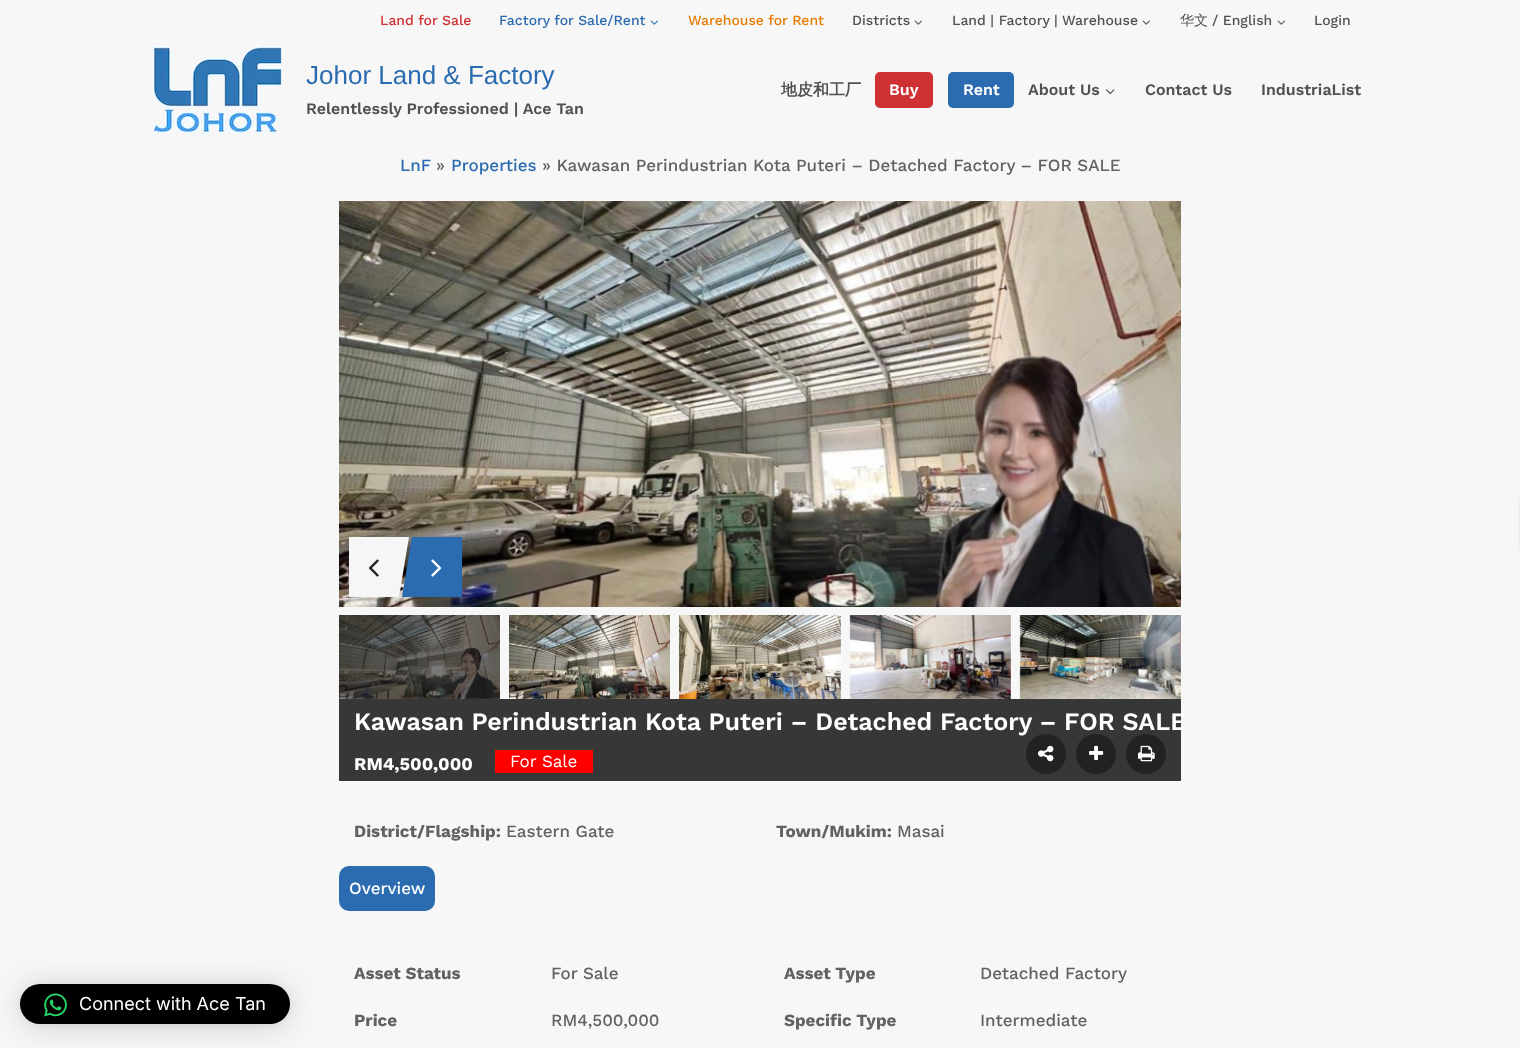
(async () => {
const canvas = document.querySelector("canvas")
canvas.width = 1520
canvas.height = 1048
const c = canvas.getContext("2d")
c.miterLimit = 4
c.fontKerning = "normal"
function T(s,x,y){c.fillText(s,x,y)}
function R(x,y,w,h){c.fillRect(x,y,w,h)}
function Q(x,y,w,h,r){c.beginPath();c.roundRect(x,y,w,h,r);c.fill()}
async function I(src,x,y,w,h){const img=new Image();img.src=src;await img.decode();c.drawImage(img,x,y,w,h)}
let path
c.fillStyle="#f7f7f7"
R(0,0,1520,1048)
c.font="500 14px Work Sans"
c.fillStyle="#cf3033"
T("Land for Sale",380,25)
c.fillStyle="#2b6cb0"
T("Factory for Sale/Rent",499,25)
await I("1.png",650,20,8,5)
c.fillStyle="#e47b02"
T("Warehouse for Rent",688,25)
c.fillStyle="#515151"
T("Districts",852,25)
await I("2.png",914,20,8,5)
T("Land | Factory | Warehouse",952,25)
await I("2.png",1142,20,8,5)
c.font="500 14px WenQuanYi Zen Hei"
T("华文",1180,25)
c.font="500 14px Work Sans"
T("/ English",1212,25)
await I("2.png",1277,20,8,5)
T("Login",1314,25)
await I("3.png",152,45,132,92)
c.font="26px Liberation Sans"
c.fillStyle="#2b6cb0"
T("Johor Land & Factory",306,84)
c.font="600 16px Work Sans"
c.fillStyle="#515151"
T("Relentlessly Professioned | Ace Tan",306,114)
c.font="bold 16px WenQuanYi Zen Hei"
T("地皮和工厂",781,95)
c.fillStyle="#cf3033"
Q(875,72,58,36,5)
c.font="600 16px Work Sans"
c.fillStyle="#fff"
T("Buy",889,95)
c.fillStyle="#2b6cb0"
Q(948,72,66,36,5)
c.fillStyle="#fff"
T("Rent",963,95)
c.fillStyle="#515151"
T("About Us",1028,95)
await I("4.png",1106,89,9,6)
T("Contact Us",1145,95)
T("IndustriaList",1261,95)
c.font="500 17px Work Sans"
c.fillStyle="#2b6cb0"
T("LnF",400,171)
c.fillStyle="#626262"
T("»",436,171)
c.fillStyle="#2b6cb0"
T("Properties",451,171)
c.fillStyle="#626262"
T("» Kawasan Perindustrian Kota Puteri – Detached Factory – FOR SALE",542,171)
await I("5.png",339,201,842,406)
c.fillStyle="#f6f6f6"
R(349,537,50,60)
await I("6.png",368,559,11,18)
path = new Path2D("M399 537h10l-10 60z")
c.fill(path)
c.fillStyle="#2b6cb0"
R(412,537,50,60)
path = new Path2D("M412 597h-10l10-60z")
c.fill(path)
await I("7.png",431,559,11,18)
await I("8.png",339,615,161,84)
await I("9.png",509,615,161,84)
await I("10.png",679,615,162,84)
await I("11.png",849,615,162,84)
await I("12.png",1019,615,162,84)
c.fillStyle="#373737"
R(339,699,842,82)
c.font="600 25px Work Sans"
c.fillStyle="#fff"
T("Kawasan Perindustrian Kota Puteri – Detached Factory – FOR SALE",354,730)
c.font="bold 18px Work Sans"
T("RM4,500,000",354,770)
c.fillStyle="#f00"
R(495,750,98,23)
c.font="17px Work Sans"
c.fillStyle="#fff"
T("For Sale",510,767)
c.fillStyle="#222"
c.beginPath()
c.arc(1046,754,20,0,7)
c.fill()
await I("13.png",1038,745,16,17)
c.beginPath()
c.arc(1096,754,20,0,7)
c.fill()
await I("14.png",1089,745,15,15)
c.beginPath()
c.arc(1146,754,20,0,7)
c.fill()
await I("15.png",1138,745,17,17)
c.font="bold 17px Work Sans"
c.fillStyle="#626262"
T("District/Flagship:",354,837)
c.font="500 17px Work Sans"
T("Eastern Gate",506,837)
c.font="bold 17px Work Sans"
T("Town/Mukim:",776,837)
c.font="500 17px Work Sans"
T("Masai",897,837)
c.fillStyle="#2b6cb0"
Q(339,866,96,45,10)
c.fillStyle="#fff"
T("Overview",349,894)
c.font="bold 17px Work Sans"
c.fillStyle="#626262"
T("Asset Status",354,979)
c.font="500 17px Work Sans"
T("For Sale",551,979)
c.font="bold 17px Work Sans"
T("Asset Type",784,979)
c.font="500 17px Work Sans"
T("Detached Factory",980,979)
c.font="bold 17px Work Sans"
T("Price",354,1026)
c.font="500 17px Work Sans"
T("RM4,500,000",551,1026)
c.font="bold 17px Work Sans"
T("Specific Type",784,1026)
c.font="500 17px Work Sans"
T("Intermediate",980,1026)
c.fillStyle="#777"
c.filter="blur(2.5px)"
c.beginPath()
c.rect(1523,499,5,52)
c.fill()
c.filter="none"
c.fillStyle="#00000029"
c.filter="blur(16px)"
c.beginPath()
c.roundRect(20,986,270,40,20)
c.fill()
c.filter="none"
c.fillStyle="#0000000f"
c.filter="blur(3px)"
c.beginPath()
c.roundRect(20,985,270,40,20)
c.fill()
c.filter="none"
c.fillStyle="#000"
Q(20,984,270,40,20)
await I("16.png",44,993,23,24)
c.font="18px Inter"
c.fillStyle="#fff"
T("Connect with Ace Tan",79,1010)
})()
